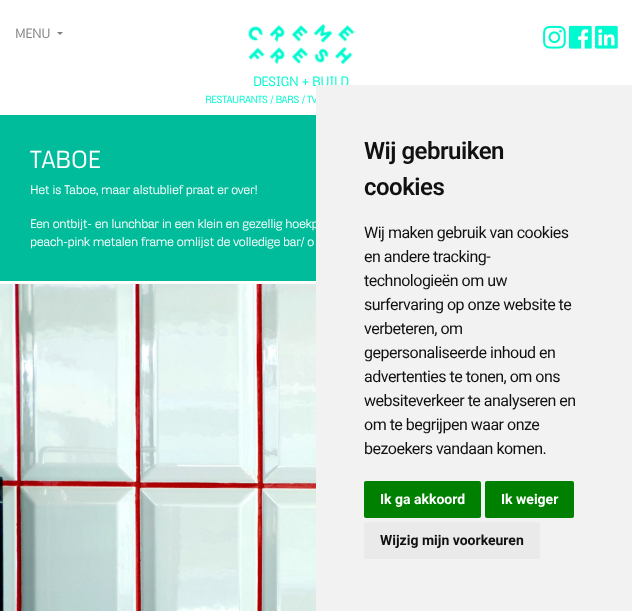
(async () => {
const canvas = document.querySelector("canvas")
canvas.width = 632
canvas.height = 611
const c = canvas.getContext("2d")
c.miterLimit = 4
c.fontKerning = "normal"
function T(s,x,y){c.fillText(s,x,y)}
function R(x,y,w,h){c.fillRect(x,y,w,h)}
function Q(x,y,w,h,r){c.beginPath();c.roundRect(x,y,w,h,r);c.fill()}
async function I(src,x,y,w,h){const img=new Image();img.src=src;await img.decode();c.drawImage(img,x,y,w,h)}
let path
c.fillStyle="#fff"
R(0,0,632,611)
c.letterSpacing="-0.5px"
c.font="13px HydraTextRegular"
c.fillStyle="#808080"
T("MENU",15,38)
path = new Path2D("M57 32h6l-3 3z")
c.fill(path)
await I("1.png",248,24,107,40)
await I("2.png",543,25,23,24)
await I("3.png",569,25,23,24)
await I("4.png",595,25,23,24)
c.fillStyle="#00facf"
T("DESIGN + BUILD",253,86)
c.font="10px HydraTextRegular"
T("RESTAURANTS / BARS / TV",205,103)
c.fillStyle="#00bc9b"
R(0,115,316,166)
c.font="24px HydraTextRegular"
c.fillStyle="#fff"
T("TABOE",30,168)
c.font="12px HydraTextRegular"
T("Het is Taboe, maar alstublief praat er over!",30,194)
T("Een ontbijt- en lunchbar in een klein en gezellig hoekp",30,228)
T("peach-pink metalen frame omlijst de volledige bar/ o",30,246)
await I("5.png",0,284,316,327)
c.fillStyle="#f2f2f2"
R(316,85,316,526)
c.font="600 24px Roboto"
c.fillStyle="#111"
T("Wij gebruiken",364,159)
T("cookies",364,195)
c.font="16px Roboto"
T("Wij maken gebruik van cookies",364,238)
T("en andere tracking-",364,262)
T("technologieën om uw",364,286)
T("surfervaring op onze website te",364,310)
T("verbeteren, om",364,334)
T("gepersonaliseerde inhoud en",364,358)
T("advertenties te tonen, om ons",364,382)
T("websiteverkeer te analyseren en",364,406)
T("om te begrijpen waar onze",364,430)
T("bezoekers vandaan komen.",364,454)
c.fillStyle="#008000"
Q(364,481,117,37,2)
c.letterSpacing="0px"
c.font="bold 14px Roboto"
c.fillStyle="#fff"
T("Ik ga akkoord",380,504)
c.fillStyle="#008000"
Q(485,481,89,37,2)
c.fillStyle="#fff"
T("Ik weiger",501,504)
c.fillStyle="#eaeaea"
Q(364,522,176,37,2)
c.fillStyle="#111"
T("Wijzig mijn voorkeuren",380,545)
})()
